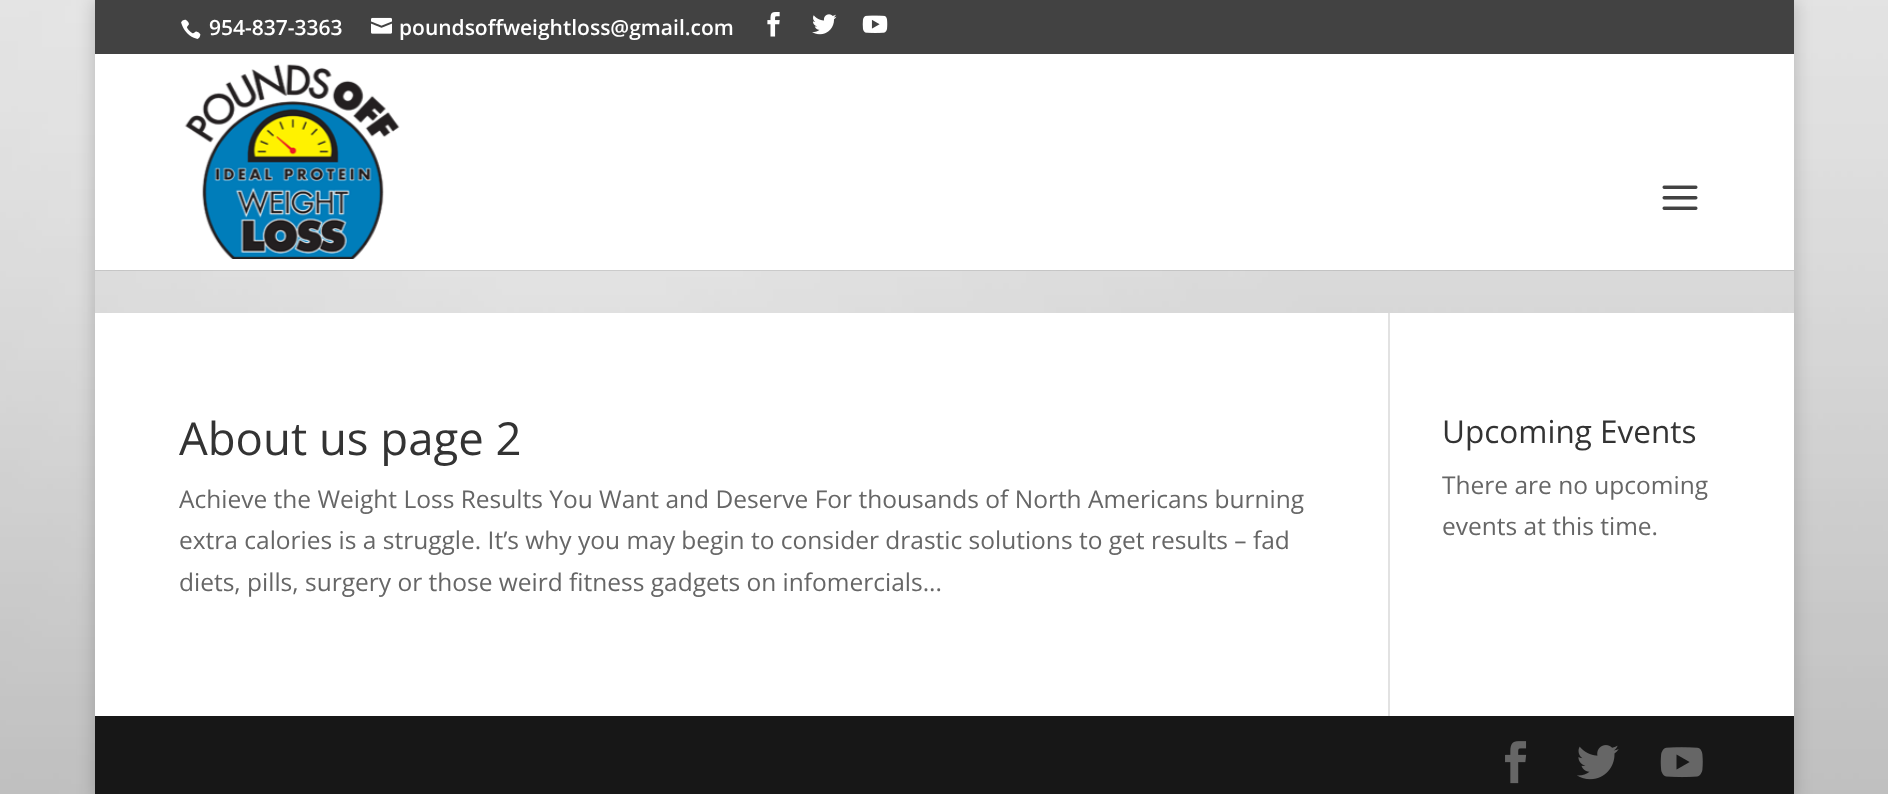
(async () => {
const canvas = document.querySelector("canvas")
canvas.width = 1888
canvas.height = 794
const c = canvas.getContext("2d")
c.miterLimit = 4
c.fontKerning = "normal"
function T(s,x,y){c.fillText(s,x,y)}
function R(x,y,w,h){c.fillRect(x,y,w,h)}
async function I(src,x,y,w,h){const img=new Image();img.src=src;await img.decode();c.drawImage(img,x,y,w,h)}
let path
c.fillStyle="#fff"
R(0,0,1888,794)
await I("1.png",0,0,1888,794)
c.save()
path = new Path2D("M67 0h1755v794h-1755zm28 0h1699v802h-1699z")
c.clip(path,"evenodd")
c.fillStyle="#00000033"
c.filter="blur(9px)"
c.beginPath()
c.rect(95,0,1699,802)
c.fill()
c.filter="none"
c.restore()
c.fillStyle="#424242"
R(95,0,1699,54)
await I("2.png",181,19,20,20)
c.font="600 21px Open Sans"
c.fillStyle="#fff"
T("954-837-3363",209,35)
await I("3.png",371,17,21,17)
T("poundsoffweightloss@gmail.com",399,35)
await I("4.png",767,12,13,25)
await I("5.png",812,14,25,21)
await I("6.png",862,15,26,18)
c.fillStyle="#0000001a"
path = new Path2D("M95 270v1h1699v-215v214z")
c.fill(path)
c.fillStyle="#fff"
R(95,54,1699,216)
await I("7.png",184,64,216,195)
await I("8.png",1662,185,36,25)
R(95,313,1699,403)
c.fillStyle="#e2e2e2"
R(1388,313,2,403)
c.font="45.5px Open Sans"
c.fillStyle="#333"
T("About us page 2",179,455)
c.font="24.5px Open Sans"
c.fillStyle="#666"
T("Achieve the Weight Loss Results You Want and Deserve For thousands of North Americans burning",179,508)
T("extra calories is a struggle. It’s why you may begin to consider drastic solutions to get results – fad",179,549)
T("diets, pills, surgery or those weird fitness gadgets on infomercials...",179,591)
c.font="31.5px Open Sans"
c.fillStyle="#333"
T("Upcoming Events",1442,443)
c.font="24.5px Open Sans"
c.fillStyle="#666"
T("There are no upcoming",1442,494)
T("events at this time.",1442,535)
c.fillStyle="#171717"
R(95,716,1699,78)
await I("9.png",1505,741,22,43)
await I("10.png",1577,745,42,35)
await I("11.png",1660,747,43,31)
})()
